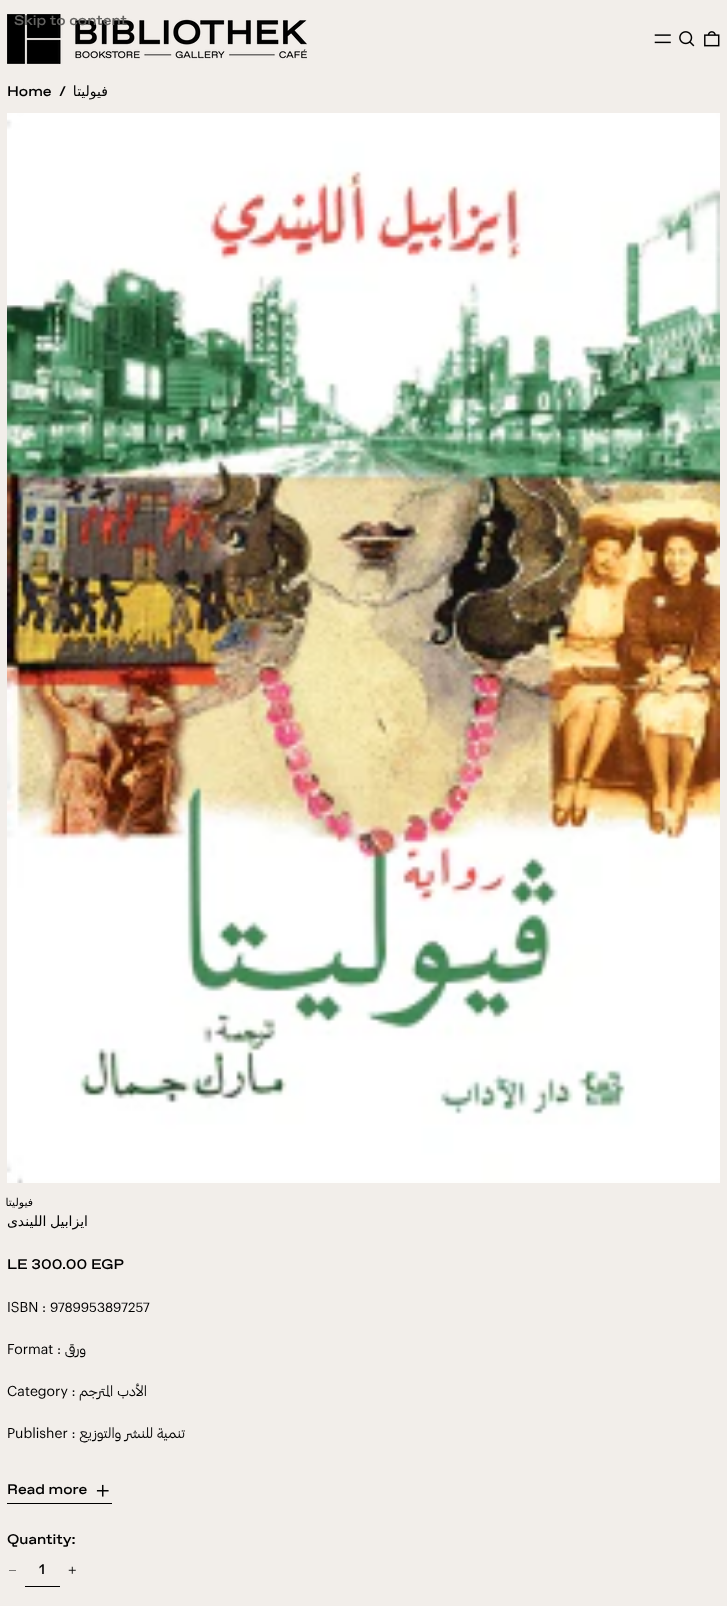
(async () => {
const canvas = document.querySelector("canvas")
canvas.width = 727
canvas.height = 1606
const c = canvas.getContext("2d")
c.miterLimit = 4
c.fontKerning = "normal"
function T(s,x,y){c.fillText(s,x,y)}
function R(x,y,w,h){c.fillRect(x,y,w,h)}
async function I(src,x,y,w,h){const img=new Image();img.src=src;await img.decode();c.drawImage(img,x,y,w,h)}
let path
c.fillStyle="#f2eeea"
R(0,0,727,1606)
await I("1.png",7,14,300,50)
c.font="500 14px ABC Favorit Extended"
c.fillStyle="#646361"
T("Skip to content",14,25)
await I("2.png",654,34,17,10)
await I("3.png",679,31,16,16)
await I("4.png",704,31,16,16)
c.fillStyle="#000"
T("Home",7,96)
T("/",59,96)
c.direction="rtl"
c.font="14px DejaVu Sans"
T("فيوليتا",108,96)
await I("5.png",7,113,713,1070)
c.letterSpacing="-0.25px"
c.font="11px DejaVu Sans"
T("فيوليتا",33,1206)
c.letterSpacing="0px"
c.wordSpacing="-1px"
c.font="14px DejaVu Sans"
T("ايزابيل الليندى",88,1226)
c.wordSpacing="0px"
c.direction="ltr"
c.font="500 14px ABC Favorit Extended"
T("LE 300.00 EGP",7,1269)
c.font="14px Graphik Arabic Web"
T("ISBN : 9789953897257",7,1312)
T("Format :",7,1354)
c.direction="rtl"
T("ورقى",86,1354)
c.direction="ltr"
T("Category :",7,1396)
c.direction="rtl"
T("الأدب المترجم",147,1396)
c.direction="ltr"
T("Publisher :",7,1438)
c.direction="rtl"
T("تنمية للنشر والتوزيع",185,1438)
R(7,1503,105,1)
c.direction="ltr"
c.font="500 14px ABC Favorit Extended"
T("Read more",7,1494)
await I("6.png",96,1484,13,13)
T("Quantity:",7,1544)
path = new Path2D("M16 1570v.5h-7v-.5z")
c.fill(path,"evenodd")
R(25,1586,35,1)
T("1",39,1574)
await I("7.png",68,1566,8,8)
})()
